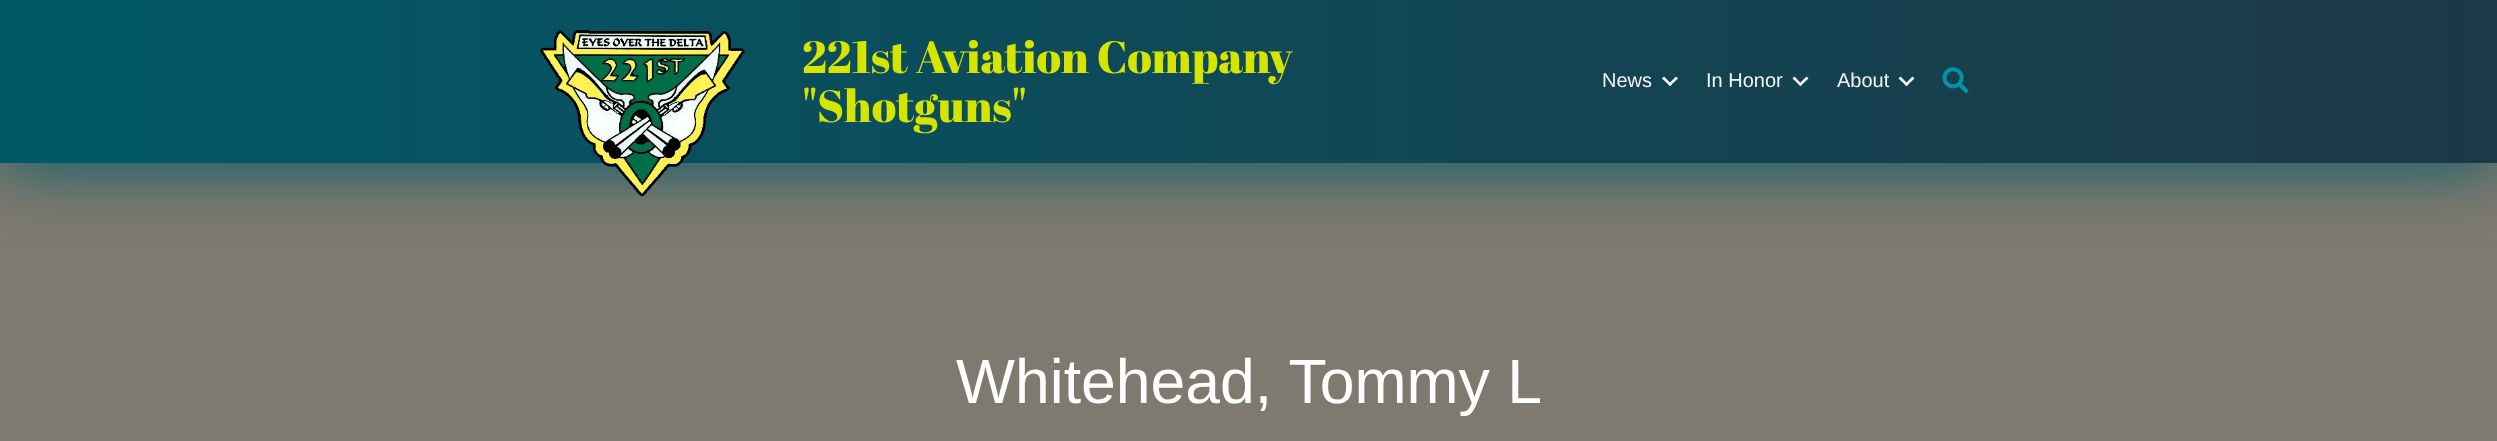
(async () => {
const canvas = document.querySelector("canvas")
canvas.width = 2497
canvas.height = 441
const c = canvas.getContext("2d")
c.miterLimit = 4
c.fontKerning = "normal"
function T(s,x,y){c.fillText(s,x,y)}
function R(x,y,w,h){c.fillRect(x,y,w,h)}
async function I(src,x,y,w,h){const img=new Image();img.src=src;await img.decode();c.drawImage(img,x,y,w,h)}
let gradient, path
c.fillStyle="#7f7a6f"
R(0,0,2497,441)
c.fillStyle="#015968"
c.filter="blur(35px)"
c.beginPath()
c.rect(0,3,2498,162)
c.fill()
c.filter="none"
gradient = c.createLinearGradient(0,81,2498,81)
gradient.addColorStop(0,"#015968")
gradient.addColorStop(1,"#1d3847")
c.fillStyle = gradient
R(0,0,2497,163)
await I("1.png",540,30,205,166)
c.font="45px Abril Fatface"
c.fillStyle="#d6e500"
T("221st Aviation Company",802,73)
T("\"Shotguns\"",802,122)
c.font="20px Liberation Sans"
c.fillStyle="#f5f5f5"
T("News",1602,87)
path = new Path2D("M1676 76.5l2 2l-8 7.5l-2-1.5z")
c.fill(path)
path = new Path2D("M1664 76.5l8 8l-2 1.5l-8-7.5z")
c.fill(path)
T("In Honor",1706,87)
path = new Path2D("M1806.5 76.5l2 2l-8 7.5l-2-1.5z")
c.fill(path)
path = new Path2D("M1794.5 76.5l7.5 8l-1.5 1.5l-8-7.5z")
c.fill(path)
T("About",1837,87)
path = new Path2D("M1912.5 76.5l2 2l-8 7.5l-2-1.5z")
c.fill(path)
path = new Path2D("M1900.5 76.5l8 8l-2 1.5l-8-7.5z")
c.fill(path)
await I("2.png",1942,67,27,27)
c.font="62.5px Liberation Sans"
c.fillStyle="#fff"
T("Whitehead, Tommy L",956,403)
})()
